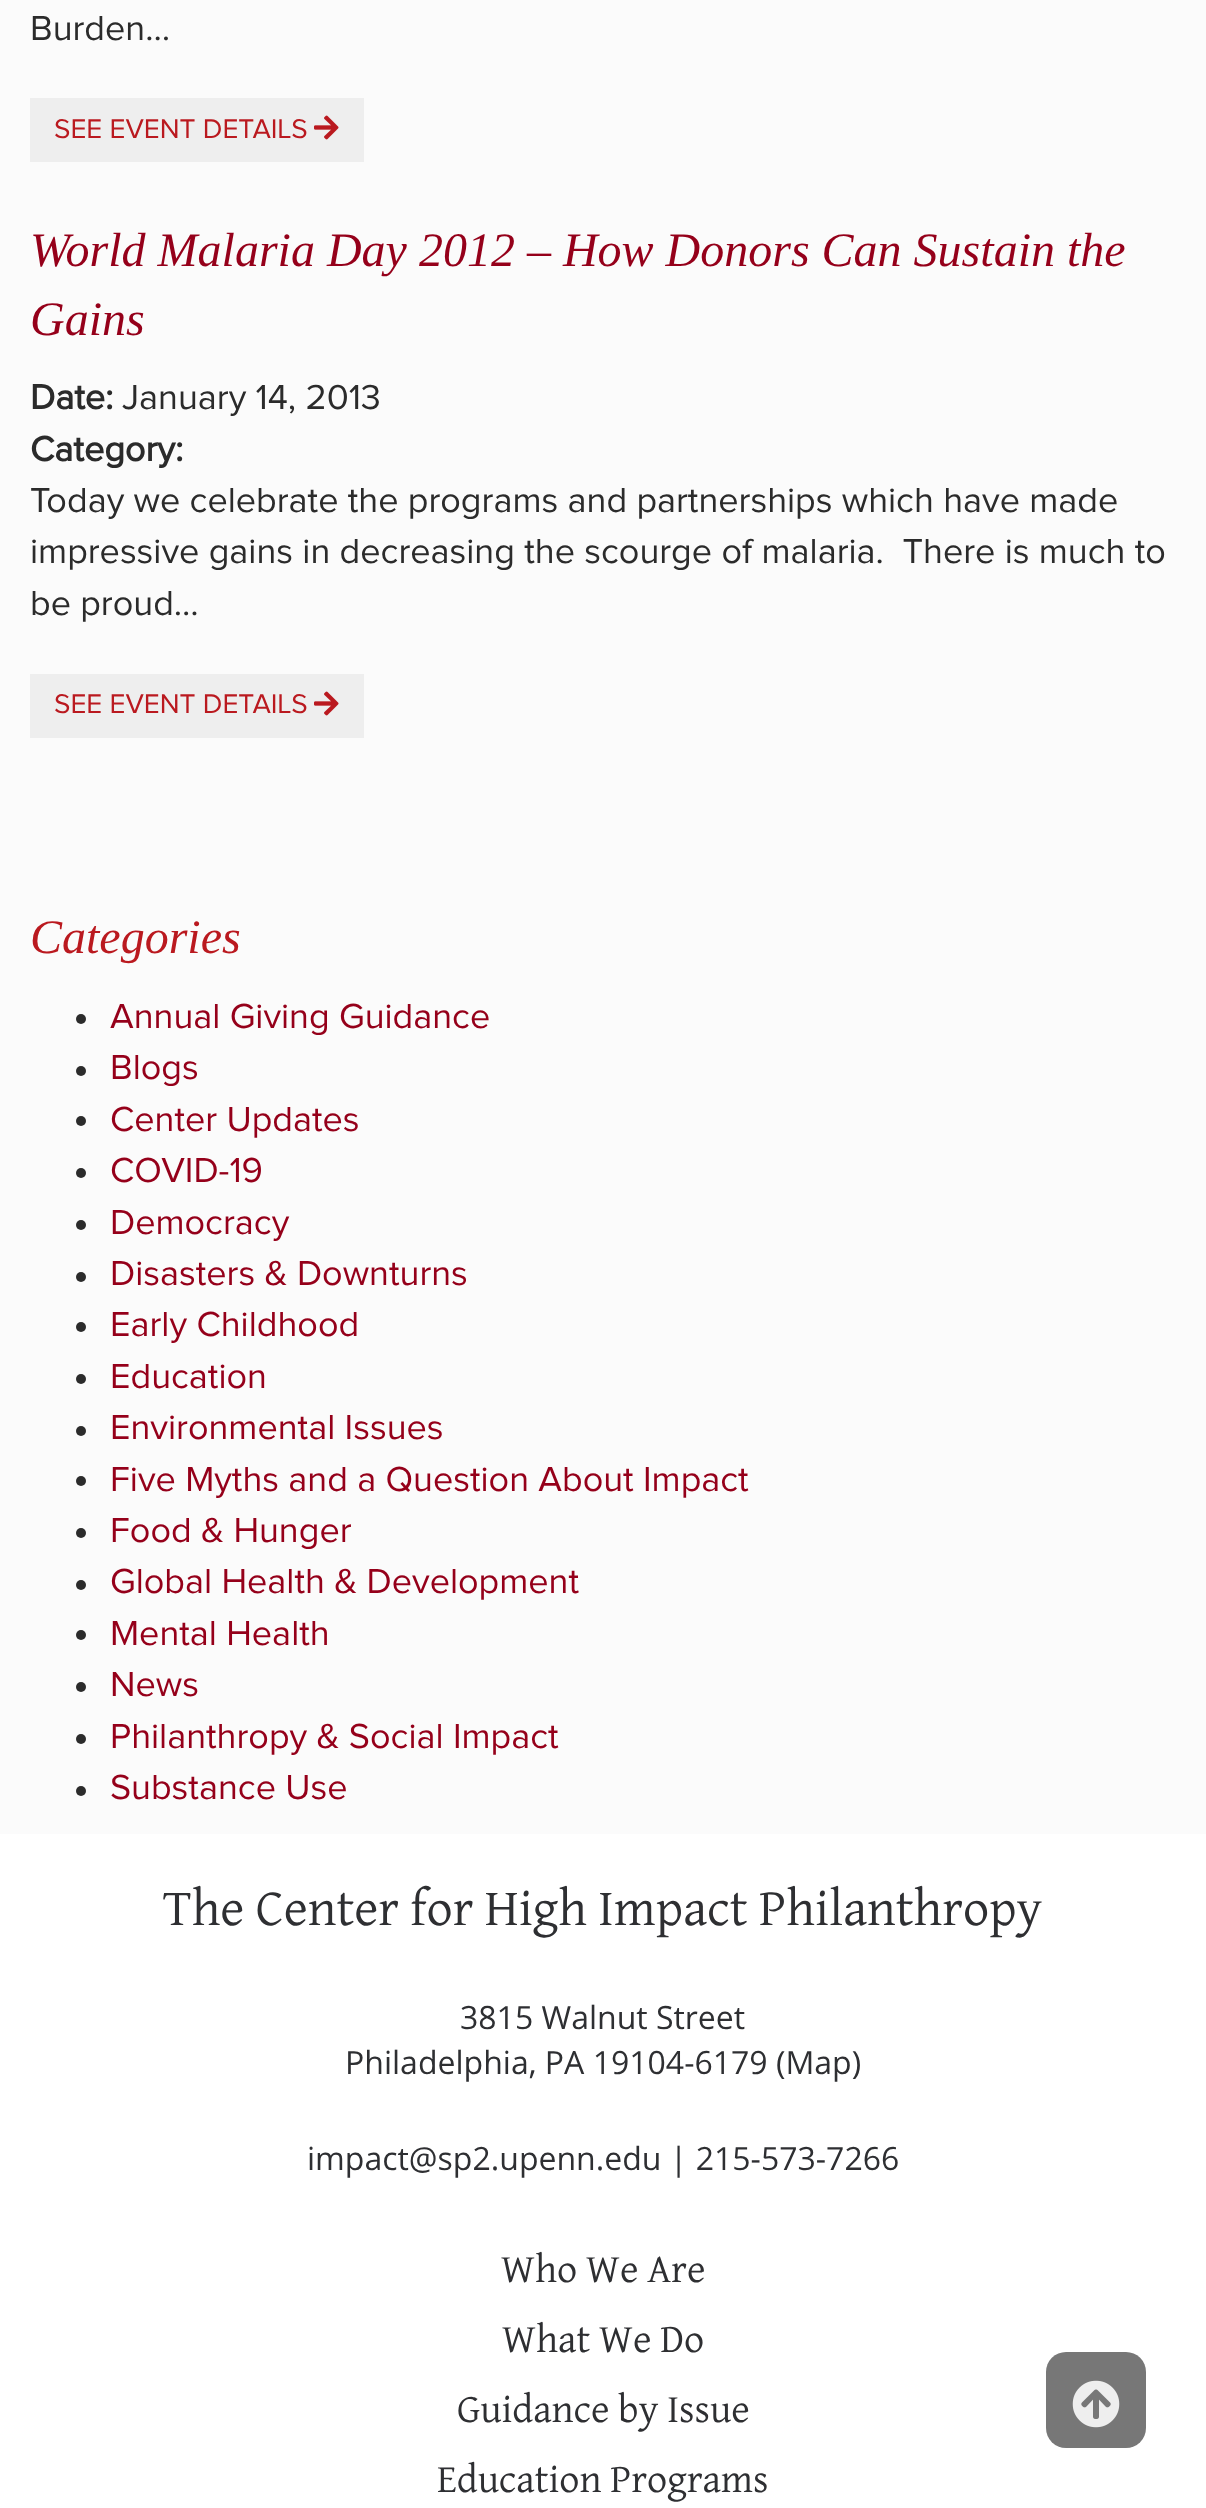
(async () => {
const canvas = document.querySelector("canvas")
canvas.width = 1206
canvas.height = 2508
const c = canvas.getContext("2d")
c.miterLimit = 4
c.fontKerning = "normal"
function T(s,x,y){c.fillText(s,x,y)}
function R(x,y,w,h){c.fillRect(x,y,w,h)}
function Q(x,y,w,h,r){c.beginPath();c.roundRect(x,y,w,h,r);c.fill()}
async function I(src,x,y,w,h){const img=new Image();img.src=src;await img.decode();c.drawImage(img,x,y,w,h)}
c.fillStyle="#fff"
R(0,0,1206,2508)
c.fillStyle="#fbfbfb"
R(0,0,1206,1834)
c.font="36px Proxima Nova"
c.fillStyle="#2b2b2b"
T("Burden…",30,40)
c.fillStyle="#eee"
R(30,98,334,64)
c.font="28px Proxima Nova"
c.fillStyle="#ba191f"
T("SEE EVENT DETAILS",54,138)
await I("1.png",314,115,25,25)
c.font="italic 48px Liberation Serif"
c.fillStyle="#95001a"
T("World Malaria Day 2012 – How Donors Can Sustain the",30,266)
T("Gains",30,335)
c.font="bold 36px Proxima Nova"
c.fillStyle="#2b2b2b"
T("Date:",30,409)
c.font="36px Proxima Nova"
T("January 14, 2013",122,409)
c.font="bold 36px Proxima Nova"
T("Category:",30,461)
c.font="36px Proxima Nova"
T("Today we celebrate the programs and partnerships which have made",30,512)
T("impressive gains in decreasing the scourge of malaria.  There is much to",30,563)
T("be proud…",30,615)
c.fillStyle="#eee"
R(30,674,334,64)
c.font="28px Proxima Nova"
c.fillStyle="#ba191f"
T("SEE EVENT DETAILS",54,713)
await I("1.png",314,691,25,25)
c.font="italic 48px Liberation Serif"
T("Categories",30,953)
c.fillStyle="#2b2b2b"
c.beginPath()
c.arc(81,1019,5,0,7)
c.fill()
c.font="36px Proxima Nova"
c.fillStyle="#95001a"
T("Annual Giving Guidance",110,1028)
c.fillStyle="#2b2b2b"
c.beginPath()
c.arc(81,1071,5,0,7)
c.fill()
c.fillStyle="#95001a"
T("Blogs",110,1079)
c.fillStyle="#2b2b2b"
c.beginPath()
c.arc(81,1121,5,0,7)
c.fill()
c.fillStyle="#95001a"
T("Center Updates",110,1131)
c.fillStyle="#2b2b2b"
c.beginPath()
c.arc(81,1173,5,0,7)
c.fill()
c.fillStyle="#95001a"
T("COVID-19",110,1182)
c.fillStyle="#2b2b2b"
c.beginPath()
c.arc(81,1225,5,0,7)
c.fill()
c.fillStyle="#95001a"
T("Democracy",110,1234)
c.fillStyle="#2b2b2b"
c.beginPath()
c.arc(81,1277,5,0,7)
c.fill()
c.fillStyle="#95001a"
T("Disasters & Downturns",110,1285)
c.fillStyle="#2b2b2b"
c.beginPath()
c.arc(81,1327,5,0,7)
c.fill()
c.fillStyle="#95001a"
T("Early Childhood",110,1336)
c.fillStyle="#2b2b2b"
c.beginPath()
c.arc(81,1379,5,0,7)
c.fill()
c.fillStyle="#95001a"
T("Education",110,1388)
c.fillStyle="#2b2b2b"
c.beginPath()
c.arc(81,1431,5,0,7)
c.fill()
c.fillStyle="#95001a"
T("Environmental Issues",110,1439)
c.fillStyle="#2b2b2b"
c.beginPath()
c.arc(81,1481,5,0,7)
c.fill()
c.fillStyle="#95001a"
T("Five Myths and a Question About Impact",110,1491)
c.fillStyle="#2b2b2b"
c.beginPath()
c.arc(81,1533,5,0,7)
c.fill()
c.fillStyle="#95001a"
T("Food & Hunger",110,1542)
c.fillStyle="#2b2b2b"
c.beginPath()
c.arc(81,1585,5,0,7)
c.fill()
c.fillStyle="#95001a"
T("Global Health & Development",110,1593)
c.fillStyle="#2b2b2b"
c.beginPath()
c.arc(81,1635,5,0,7)
c.fill()
c.fillStyle="#95001a"
T("Mental Health",110,1645)
c.fillStyle="#2b2b2b"
c.beginPath()
c.arc(81,1687,5,0,7)
c.fill()
c.fillStyle="#95001a"
T("News",110,1696)
c.fillStyle="#2b2b2b"
c.beginPath()
c.arc(81,1739,5,0,7)
c.fill()
c.fillStyle="#95001a"
T("Philanthropy & Social Impact",110,1748)
c.fillStyle="#2b2b2b"
c.beginPath()
c.arc(81,1791,5,0,7)
c.fill()
c.fillStyle="#95001a"
T("Substance Use",110,1799)
c.font="52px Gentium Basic"
c.fillStyle="#2e2f32"
T("The Center for High Impact Philanthropy",163,1925)
c.font="32px Open Sans"
T("3815 Walnut Street",460,2029)
T("Philadelphia, PA 19104-6179 (Map)",345,2074)
T("impact@sp2.upenn.edu | 215-573-7266",307,2170)
c.font="40px Gentium Basic"
T("Who We Are",501,2282)
T("What We Do",502,2352)
T("Guidance by Issue",457,2422)
T("Education Programs",437,2492)
c.fillStyle="#777"
Q(1046,2352,100,96,20)
await I("2.png",1072,2380,48,48)
})()
